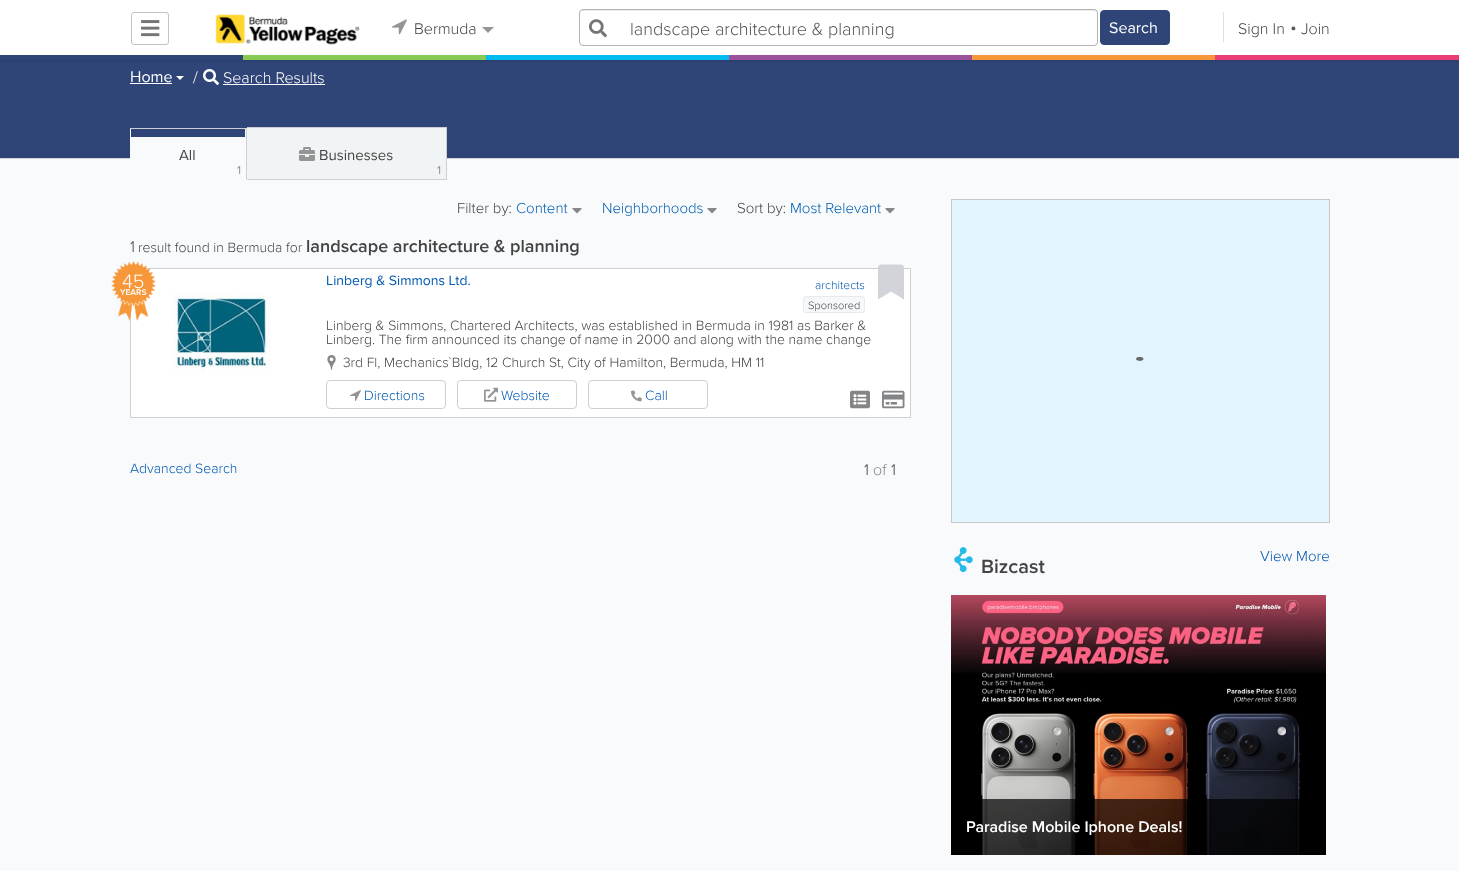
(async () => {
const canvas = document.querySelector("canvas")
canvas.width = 1459
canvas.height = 871
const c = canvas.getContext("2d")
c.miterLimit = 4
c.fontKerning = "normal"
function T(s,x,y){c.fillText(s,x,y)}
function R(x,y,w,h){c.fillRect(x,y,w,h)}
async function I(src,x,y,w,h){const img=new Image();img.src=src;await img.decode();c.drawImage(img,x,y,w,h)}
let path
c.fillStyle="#f9fafc"
R(0,0,1459,871)
c.fillStyle="#fff"
R(0,0,1459,55)
c.beginPath()
c.roundRect(131.5,12.5,37,32,2.5)
c.strokeStyle="#c2c3c4"
c.stroke()
await I("1.png",141,20,19,17)
await I("2.png",215,14,145,31)
await I("3.png",392,19,15,16)
c.font="300 16px Proxima Nova"
c.fillStyle="#444"
T("Bermuda",414,34)
c.fillStyle="#959595"
path = new Path2D("M482 27h12l-6 6z")
c.fill(path)
c.fillStyle="#ececec"
path = new Path2D("M583 11h511c2 0 3 1 3 3v-2l-2-2h-512c-2 0-3 2-3 4c0-2 1-3 3-3z")
c.fill(path)
c.beginPath()
c.roundRect(579.5,9.5,518,36,3.5)
c.strokeStyle="#b3b3b3"
c.stroke()
await I("4.png",589,19,18,19)
c.font="300 18px Proxima Nova"
c.fillStyle="#555"
T("landscape architecture & planning",630,35)
c.fillStyle="#2f4577"
c.beginPath()
c.roundRect(1100.5,10.5,69,34,3.5)
c.fill()
c.strokeStyle="#2f4577"
c.stroke()
c.font="16px Proxima Nova"
c.fillStyle="#fff"
T("Search",1109,33)
c.fillStyle="#dfe0e4"
R(1223,12,1,30)
c.font="300 16px Proxima Nova"
c.fillStyle="#444"
T("Sign In",1238,34)
c.font="300 19px Proxima Nova"
c.fillStyle="#585b5d"
T("•",1290,33)
c.font="300 16px Proxima Nova"
c.fillStyle="#444"
T("Join",1301,34)
c.fillStyle="#2f4577"
R(0,60,1459,98)
c.fillStyle="#0000001a"
c.filter="blur(1px)"
c.beginPath()
c.rect(0,56,1459,5)
c.fill()
c.filter="none"
c.fillStyle="#eb3e76"
R(1215,55,244,5)
c.fillStyle="#2f4577"
R(0,55,243,5)
c.fillStyle="#87ca56"
R(243,55,243,5)
c.fillStyle="#00bcf1"
R(486,55,243,5)
c.fillStyle="#9c529a"
R(729,55,243,5)
c.fillStyle="#f6973a"
R(972,55,243,5)
c.fillStyle="#d1d3d8"
R(0,158,1459,1)
c.font="16px Proxima Nova"
c.fillStyle="#fff"
T("Home",130,82)
R(130,83,42,1)
path = new Path2D("M176 76h8l-4 4z")
c.fill(path)
c.font="300 17px Proxima Nova"
T("/",193,83)
await I("5.png",203,69,16,16)
c.font="300 16px Proxima Nova"
T("Search Results",223,83)
R(223,84,102,1)
c.fillStyle="#f9fafc"
R(130,129,116,30)
c.fillStyle="#cdcfd5"
R(130,128,117,1)
R(246,128,1,52)
c.fillStyle="#f9fafc"
R(246,179,1,1)
c.fillStyle="#2f4577"
R(131,129,114,8)
c.font="15px Proxima Nova"
c.fillStyle="#444"
T("All",179,160)
c.font="12px Proxima Nova"
c.fillStyle="#929393"
T("1",237,174)
c.fillStyle="#f0f4f5"
R(247,128,199,51)
c.fillStyle="#cdcfd5"
R(247,127,200,1)
R(446,127,1,53)
R(247,179,200,1)
await I("6.png",299,147,16,14)
c.font="15px Proxima Nova"
c.fillStyle="#444"
T("Businesses",319,160)
c.font="12px Proxima Nova"
c.fillStyle="#929393"
T("1",437,174)
c.font="300 15px Proxima Nova"
c.fillStyle="#444"
T("Filter by:",457,213)
c.fillStyle="#005eae"
T("Content",516,213)
await I("7.png",572,208,10,6)
T("Neighborhoods",602,213)
await I("7.png",707,208,10,6)
c.fillStyle="#444"
T("Sort by:",737,213)
c.fillStyle="#005eae"
T("Most Relevant",790,213)
await I("7.png",885,208,10,6)
c.font="300 16px Proxima Nova"
c.fillStyle="#444"
T("1",130,252)
c.font="300 14px Proxima Nova"
T("result found in Bermuda for",138,252)
c.font="600 18px Proxima Nova"
T("landscape architecture & planning",306,252)
c.fillStyle="#fff"
c.beginPath()
c.rect(130.5,268.5,780,149)
c.fill()
c.strokeStyle="#cdcfd5"
c.stroke()
await I("8.png",111,261,45,60)
c.font="300 20px Proxima Nova"
T("45",122,288)
c.font="600 8.5px Proxima Nova"
T("YEARS",120,295)
await I("9.png",172,293,99,80)
c.font="14px Proxima Nova"
c.fillStyle="#0158b0"
T("Linberg & Simmons Ltd.",326,285)
c.font="300 12px Proxima Nova"
T("architects",815,289)
c.fillStyle="#d2d4d9"
path = new Path2D("M878 299.5v-32.5c.5-3 4-2.5 6.5-2.5h13c2.5 0 6-.5 6.5 2.5v32.5l-13-8z")
c.fill(path)
c.fillStyle="#f6f9fa"
c.beginPath()
c.roundRect(803.5,296.5,61,16,2.5)
c.fill()
c.strokeStyle="#e7e9ec"
c.stroke()
c.font="300 11px Proxima Nova"
c.fillStyle="#444"
T("Sponsored",808,309)
c.font="300 14px Proxima Nova"
T("Linberg & Simmons, Chartered Architects, was established in Bermuda in 1981 as Barker &",326,330)
T("Linberg. The firm announced its change of name in 2000 and along with the name change",326,344)
await I("10.png",327,355,9,15)
T("3rd Fl, Mechanics`Bldg, 12 Church St, City of Hamilton, Bermuda, HM 11",343,367)
c.beginPath()
c.roundRect(326.5,380.5,119,28,3.5)
c.strokeStyle="#cdcfd5"
c.stroke()
await I("11.png",350,390,11,11)
c.fillStyle="#0158b0"
T("Directions",364,400)
c.beginPath()
c.roundRect(457.5,380.5,119,28,3.5)
c.stroke()
await I("12.png",484,387,14,15)
T("Website",501,400)
c.beginPath()
c.roundRect(588.5,380.5,119,28,3.5)
c.stroke()
await I("13.png",631,390,11,12)
T("Call",645,400)
await I("14.png",850,390,20,19)
await I("15.png",882,390,23,19)
T("Advanced Search",130,473)
c.font="300 16px Proxima Nova"
c.fillStyle="#444"
T("1",864,475)
c.fillStyle="#848586"
T("of",873,475)
c.fillStyle="#444"
T("1",891,475)
c.strokeStyle="#c7c7c7"
c.strokeRect(951.5,199.5,378,323)
c.fillStyle="#e2f4fd"
R(952,200,377,322)
await I("16.png",1136,356,8,5)
c.font="300 15px Proxima Nova"
c.fillStyle="#0158b0"
T("View More",1260,561)
await I("17.png",954,547,19,25)
c.font="600 20px Proxima Nova"
c.fillStyle="#444"
T("Bizcast",981,573)
await I("18.png",951,595,375,260)
c.fillStyle="#000000b3"
R(982,799,318,56)
c.font="600 16px Proxima Nova"
c.fillStyle="#fff"
T("Paradise Mobile Iphone Deals!",966,832)
})()
